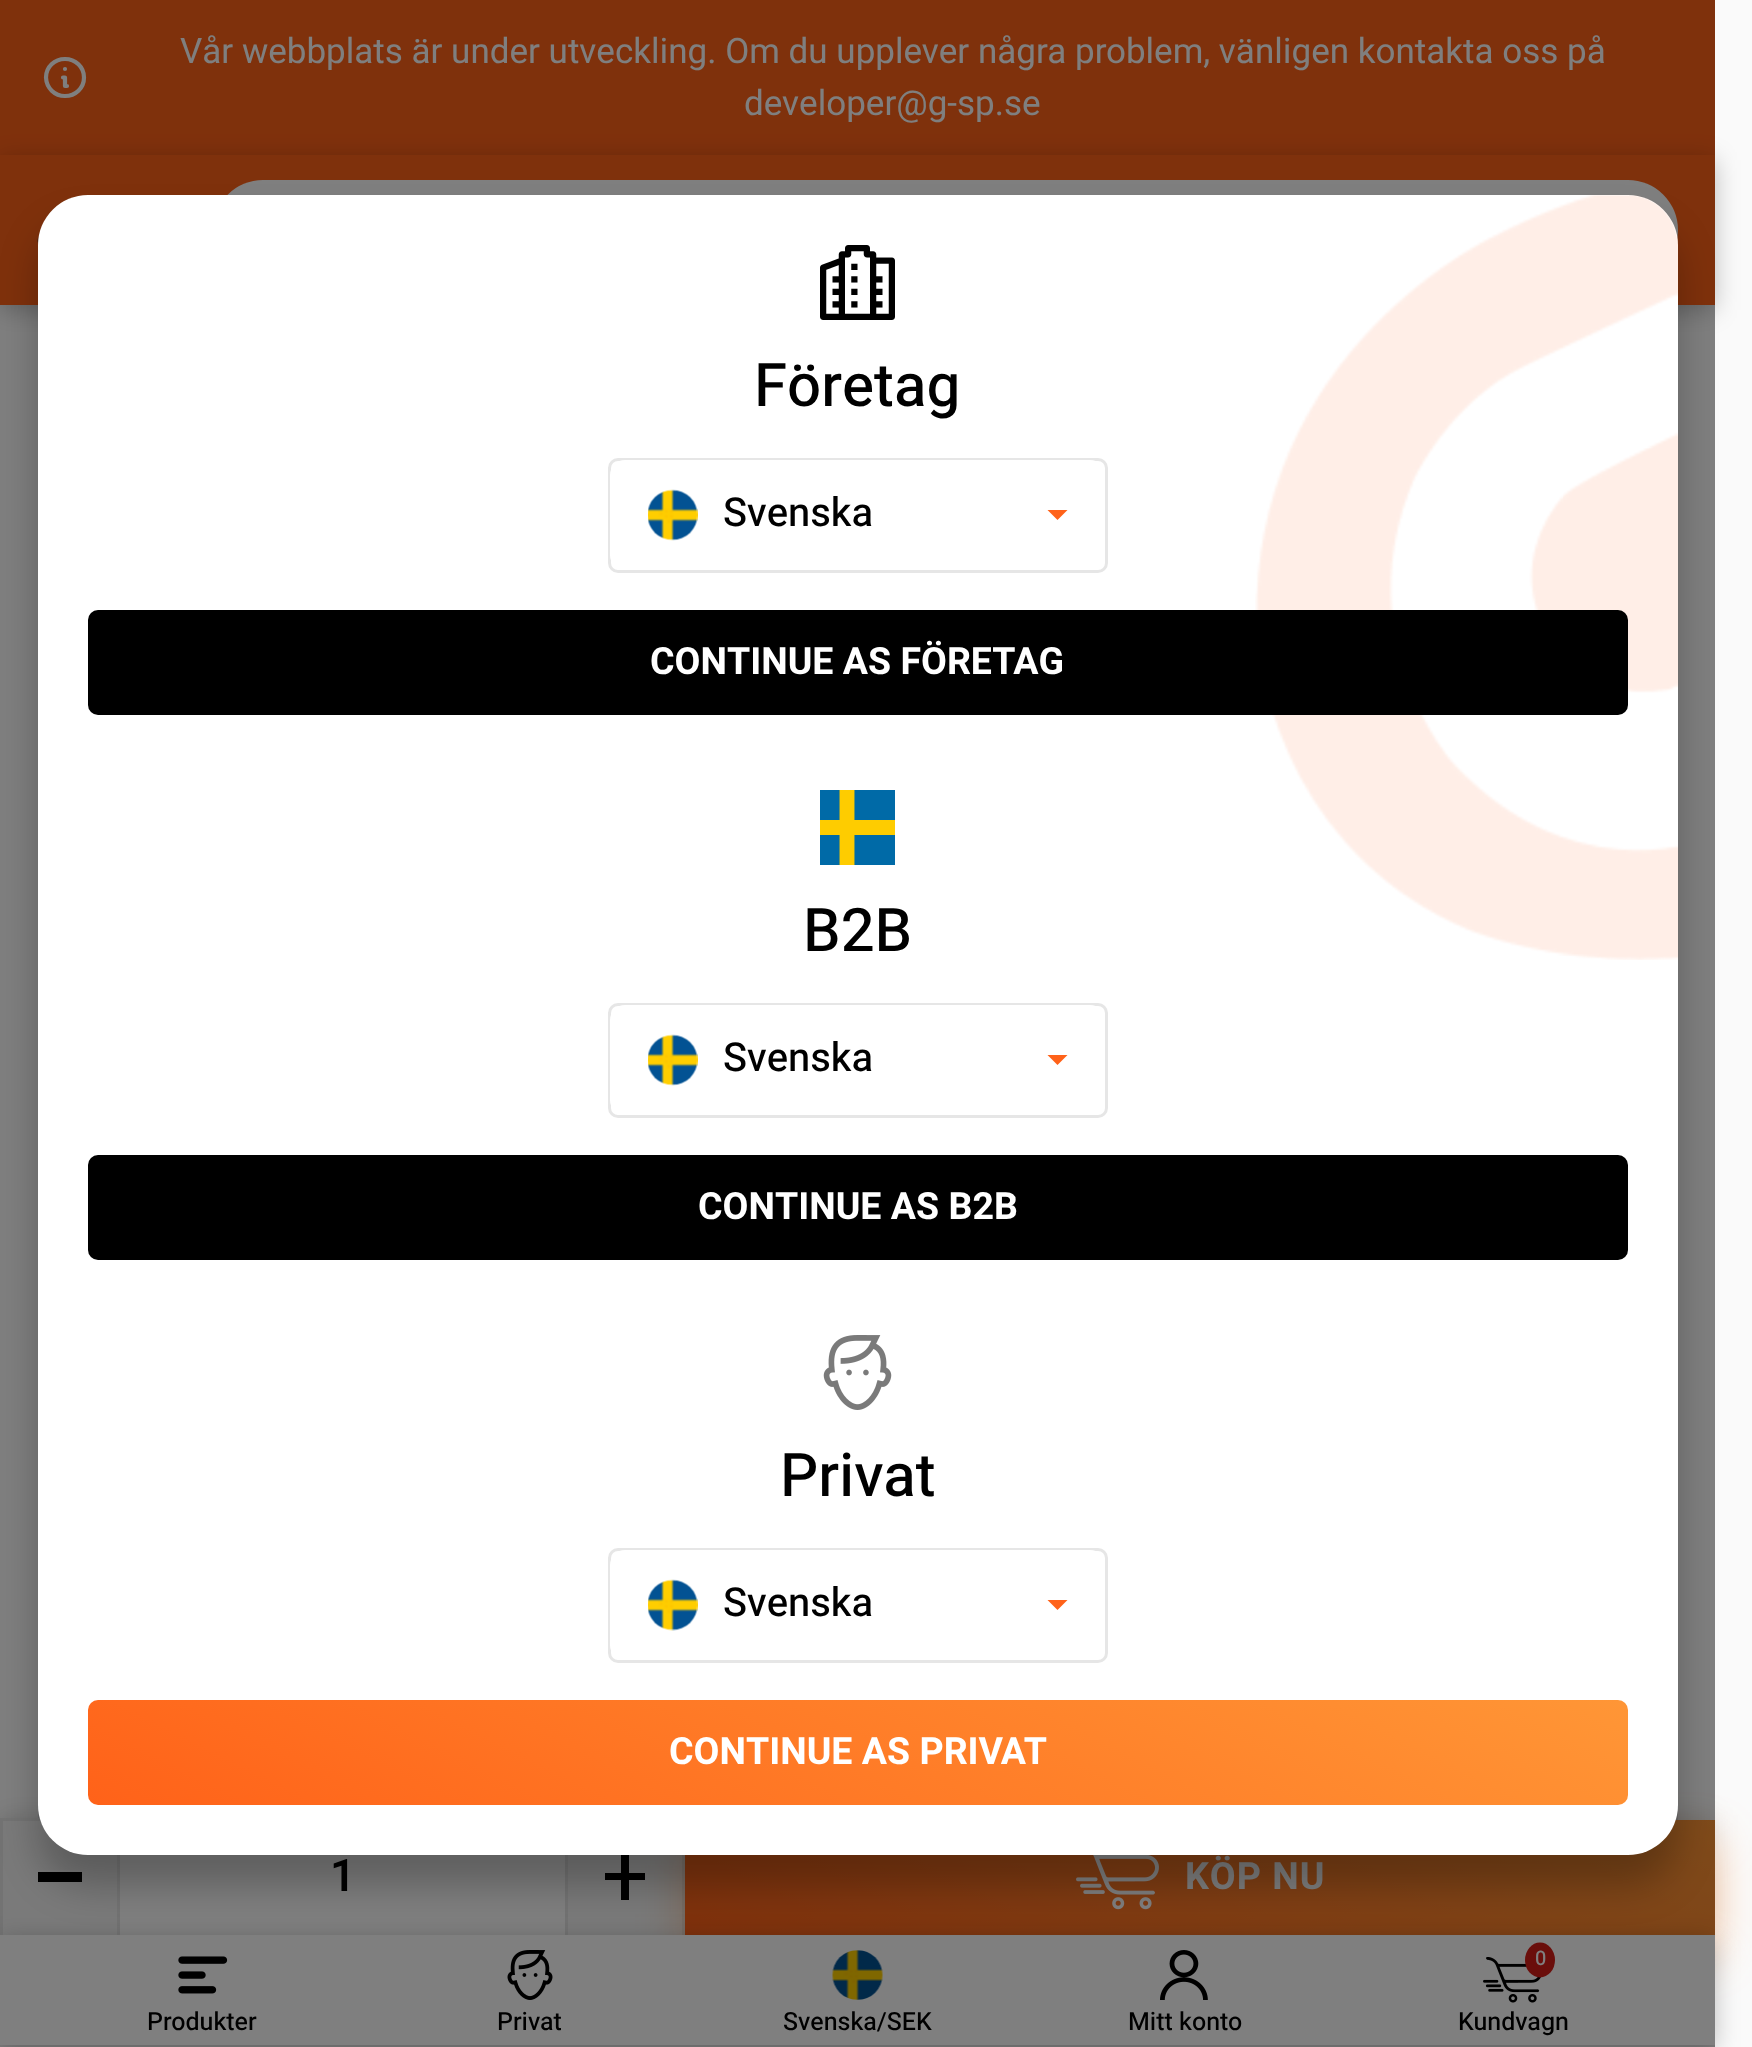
(async () => {
const canvas = document.querySelector("canvas")
canvas.width = 1752
canvas.height = 2047
const c = canvas.getContext("2d")
c.miterLimit = 4
c.fontKerning = "normal"
function T(s,x,y){c.fillText(s,x,y)}
function R(x,y,w,h){c.fillRect(x,y,w,h)}
function Q(x,y,w,h,r){c.beginPath();c.roundRect(x,y,w,h,r);c.fill()}
async function I(src,x,y,w,h){const img=new Image();img.src=src;await img.decode();c.drawImage(img,x,y,w,h)}
let gradient, path
c.fillStyle="#fafafa"
R(0,0,1752,2047)
c.fillStyle="#ff6219"
R(0,0,1715,155)
path = new Path2D("M67 86h-2v-8.5h-2m2-8.5h0m19 8.5c0 10.5-8.5 18.5-19 18.5c-10.5 0-18.5-8-19-18.5c0-10.5 8.5-18.5 19-18.5c10.5 0 19 8 19 18.5z")
c.strokeStyle="#fff"
c.lineWidth=4.2
c.lineCap="round"
c.lineJoin="round"
c.stroke(path)
c.font="35px Heebo"
c.fillStyle="#fff"
T("Vår webbplats är under utveckling. Om du upplever några problem, vänligen kontakta oss på",180,63)
T("developer@g-sp.se",744,115)
R(0,305,1715,1515)
c.strokeStyle="#e5e7eb"
c.lineWidth=3
c.lineJoin="miter"
c.strokeRect(39.5,344.5,1637,1637)
c.fillStyle="#0000003d"
c.filter="blur(12.5px)"
c.beginPath()
c.rect(0,160,1715,150)
c.fill()
c.filter="none"
c.fillStyle="#ff6219"
R(0,155,1715,150)
await I("1.png",37,236,2,8)
c.fillStyle="#fff"
Q(213,180,1465,100,50)
c.fillStyle="#0000001a"
c.filter="blur(12.5px)"
c.beginPath()
c.rect(0,1815,1715,115)
c.fill()
c.filter="none"
c.fillStyle="#00000014"
c.filter="blur(10px)"
c.beginPath()
c.rect(0,1823,685,120)
c.fill()
c.filter="none"
c.fillStyle="#fff"
R(120,1855,445,80)
c.fillStyle="#f5f5f5"
c.beginPath()
c.rect(1.5,1819.5,117,117)
c.fill()
c.strokeStyle="#e6e6e6"
c.stroke()
c.fillStyle="#000"
R(38,1872,44,10)
c.font="600 45px Heebo"
T("1",330,1891)
c.fillStyle="#f5f5f5"
R(568,1855,114,80)
c.strokeRect(566.5,1819.5,117,117)
c.fillStyle="#000"
path = new Path2D("M645 1880h-16v20h-8v-20h-16v-7h16v-18h8v18h16z")
c.fill(path)
c.fillStyle="#ff7a1859"
c.filter="blur(22.5px)"
c.beginPath()
c.rect(685,1840,1030,115)
c.fill()
c.filter="none"
gradient = c.createLinearGradient(1326,1625,1074,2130)
gradient.addColorStop(0,"#ff9636")
gradient.addColorStop(1,"#ff6219")
c.fillStyle = gradient
R(685,1820,1030,115)
await I("7.png",1076,1855,83,55)
c.letterSpacing="1px"
c.font="bold 37.5px Heebo"
c.fillStyle="#fff"
T("KÖP NU",1185,1889)
R(0,1935,1715,112)
c.save()
path = new Path2D("M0 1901h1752v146h-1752zm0 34h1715v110h-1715z")
c.clip(path,"evenodd")
c.fillStyle="#0000003d"
c.filter="blur(12.5px)"
c.beginPath()
c.rect(0,1940,1715,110)
c.fill()
c.filter="none"
c.restore()
await I("8.png",178,1956,50,38)
c.letterSpacing="0px"
c.font="500 25px Heebo"
c.fillStyle="#000"
T("Produkter",147,2030)
await I("9.png",507,1950,46,50)
T("Privat",497,2030)
await I("10.png",832,1950,51,50)
T("Svenska/SEK",783,2030)
await I("11.png",1160,1950,48,50)
T("Mitt konto",1128,2030)
await I("12.png",1483,1957,58,46)
c.fillStyle="#d51c17"
c.beginPath()
c.ellipse(1540,1960,15,17.5,0,0,7)
c.fill()
c.font="500 20px Heebo"
c.fillStyle="#fff"
T("0",1535,1965)
c.font="500 25px Heebo"
c.fillStyle="#000"
T("Kundvagn",1458,2030)
c.fillStyle="#00000080"
R(0,0,1715,2047)
c.fillStyle="#00000040"
c.filter="blur(19px)"
c.beginPath()
c.roundRect(38,225,1640,1660,50)
c.fill()
c.filter="none"
c.fillStyle="#fff"
Q(38,195,1640,1660,50)
await I("2.png",1255,195,423,765)
await I("3.png",820,245,75,75)
c.font="500 60px Heebo"
c.fillStyle="#000"
T("Företag",754,406)
c.beginPath()
c.roundRect(609.5,459.5,497,112,8.5)
c.stroke()
c.fillStyle="#fff"
Q(610,460,495,110,15)
await I("4.png",648,489,50,52)
c.font="500 40px Heebo"
c.fillStyle="#000"
T("Svenska",723,526)
c.fillStyle="#ff6219"
path = new Path2D("M1047.5 510h20l-10 10z")
c.fill(path,"evenodd")
c.fillStyle="#000"
Q(88,610,1540,105,10)
c.font="bold 37.5px Heebo"
c.fillStyle="#fff"
T("CONTINUE AS FÖRETAG",650,674)
c.fillStyle="#006aa7"
R(820,790,75,75)
path = new Path2D("M820 827.5h75m-48-37.5v75")
c.strokeStyle="#fecc00"
c.lineWidth=14.9
c.lineCap="butt"
c.stroke(path)
c.font="500 60px Heebo"
c.fillStyle="#000"
T("B2B",803,951)
c.beginPath()
c.roundRect(609.5,1004.5,497,112,8.5)
c.strokeStyle="#e6e6e6"
c.lineWidth=3
c.stroke()
c.fillStyle="#fff"
Q(610,1005,495,110,15)
await I("4.png",648,1034,50,52)
c.font="500 40px Heebo"
c.fillStyle="#000"
T("Svenska",723,1071)
c.fillStyle="#ff6219"
path = new Path2D("M1047.5 1055h20l-10 10z")
c.fill(path,"evenodd")
c.fillStyle="#000"
Q(88,1155,1540,105,10)
c.font="bold 37.5px Heebo"
c.fillStyle="#fff"
T("CONTINUE AS B2B",698,1219)
await I("5.png",823,1335,69,75)
c.font="500 60px Heebo"
c.fillStyle="#000"
T("Privat",780,1496)
c.beginPath()
c.roundRect(609.5,1549.5,497,112,8.5)
c.stroke()
c.fillStyle="#fff"
Q(610,1550,495,110,15)
await I("6.png",648,1579,50,52)
c.font="500 40px Heebo"
c.fillStyle="#000"
T("Svenska",723,1616)
c.fillStyle="#ff6219"
path = new Path2D("M1047.5 1600h20l-10 10z")
c.fill(path,"evenodd")
gradient = c.createLinearGradient(1033,1402,682,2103)
gradient.addColorStop(0,"#ff9636")
gradient.addColorStop(1,"#ff6219")
c.fillStyle = gradient
Q(88,1700,1540,105,10)
c.font="bold 37.5px Heebo"
c.fillStyle="#fff"
T("CONTINUE AS PRIVAT",669,1764)
})()
